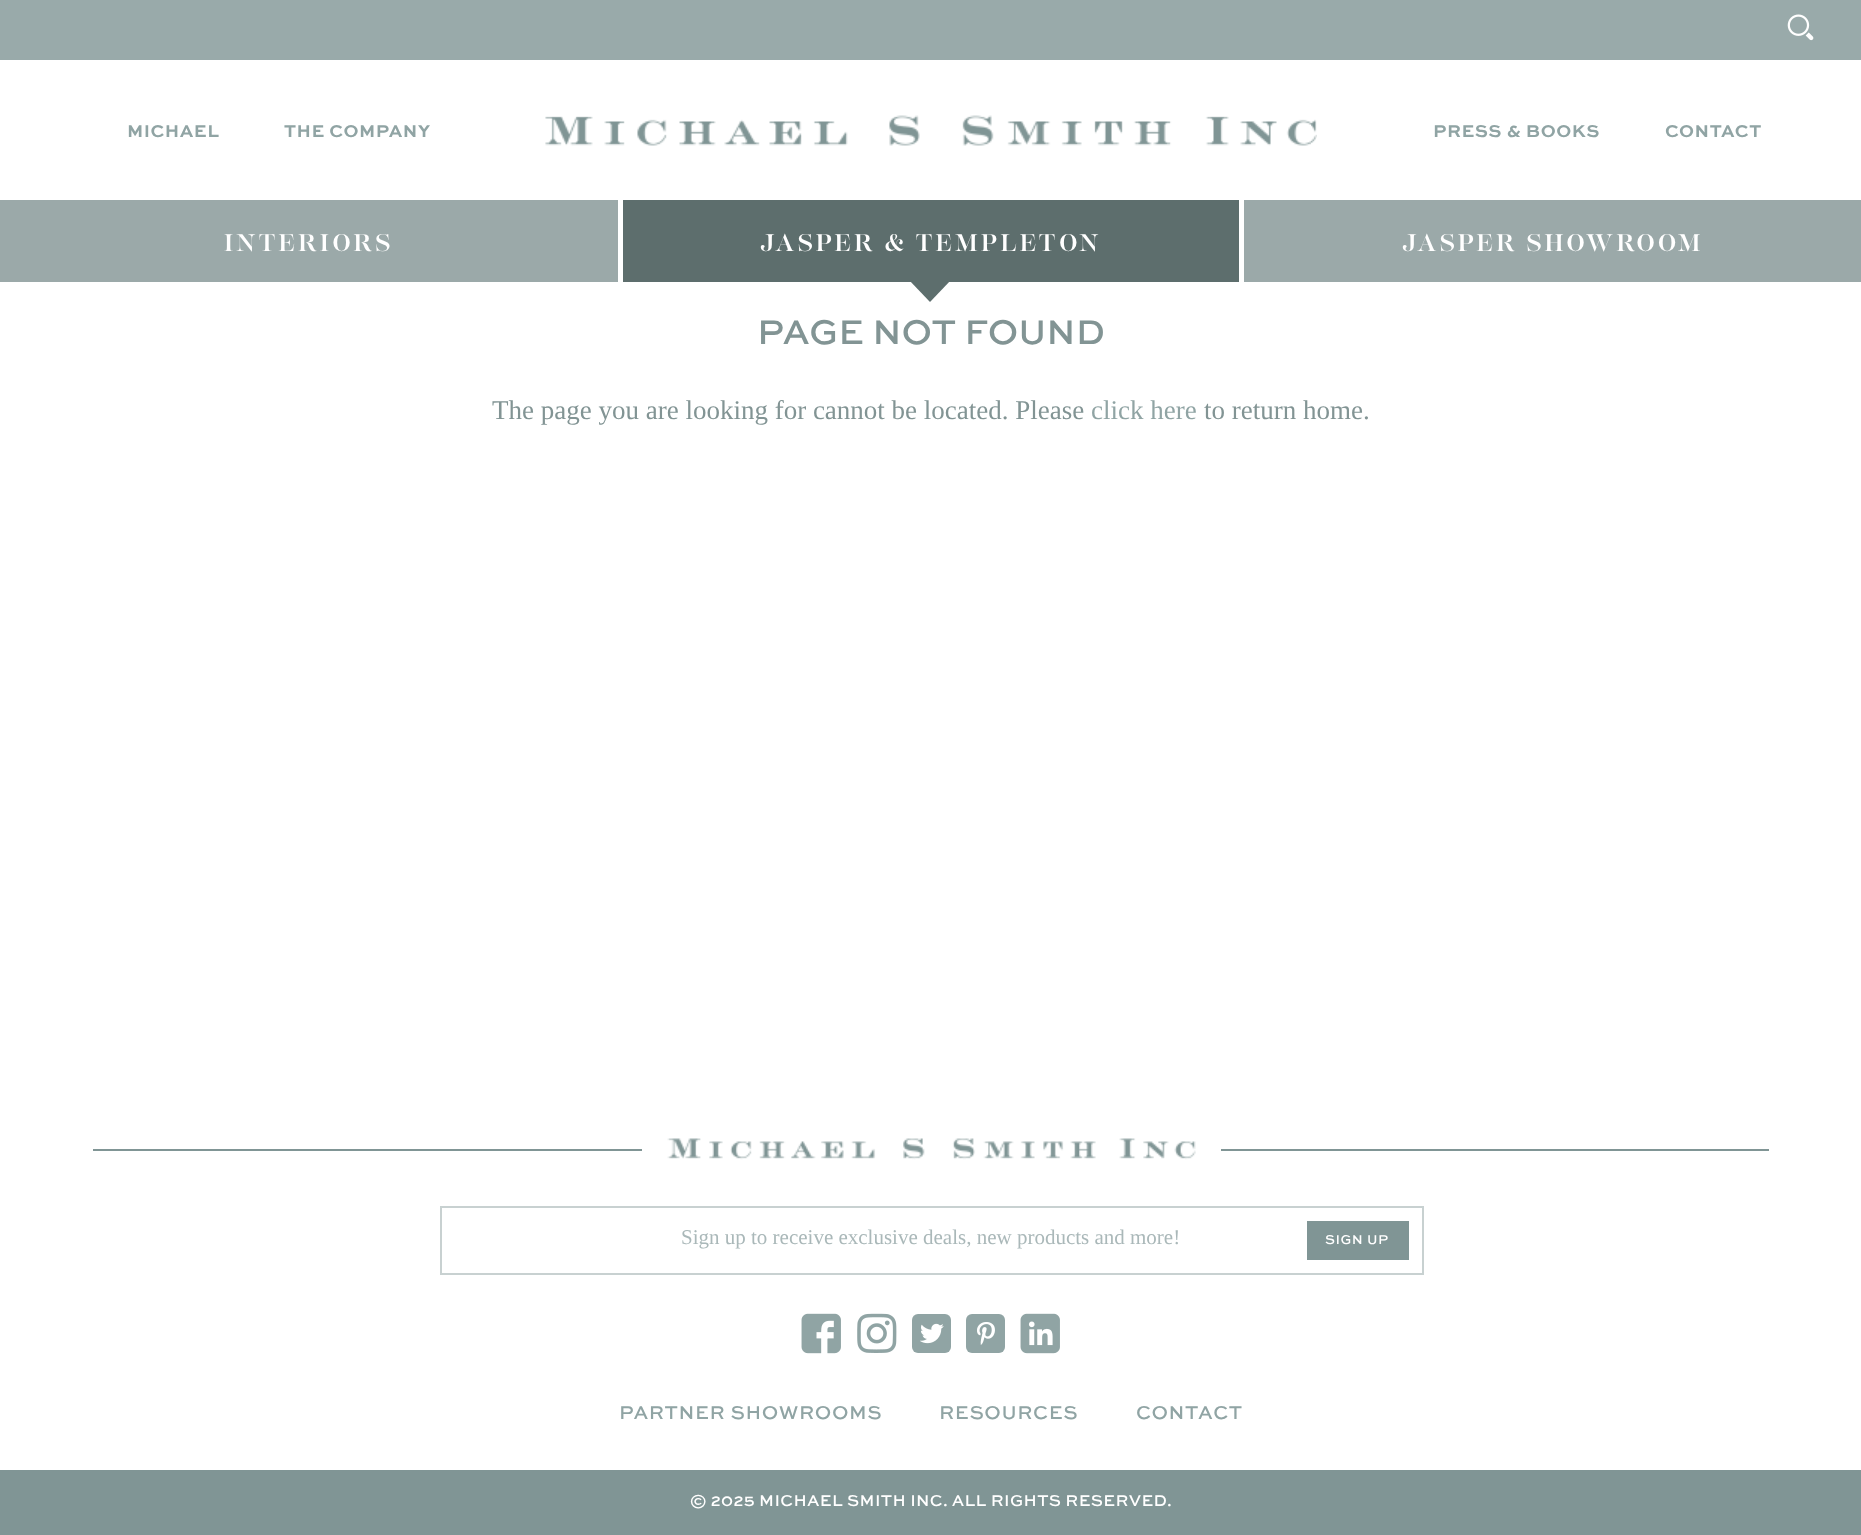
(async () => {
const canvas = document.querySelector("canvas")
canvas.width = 1861
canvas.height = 1535
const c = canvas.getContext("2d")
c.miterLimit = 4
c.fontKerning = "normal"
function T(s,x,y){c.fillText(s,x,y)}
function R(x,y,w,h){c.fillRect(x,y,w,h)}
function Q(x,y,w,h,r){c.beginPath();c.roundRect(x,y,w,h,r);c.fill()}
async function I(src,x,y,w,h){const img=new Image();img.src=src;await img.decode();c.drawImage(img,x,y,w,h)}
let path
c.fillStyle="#fff"
R(0,0,1861,1535)
c.fillStyle="#9aa"
R(0,0,1861,60)
await I("1.png",1787,14,27,27)
await I("2.png",545,115,772,31)
c.letterSpacing="0.5px"
c.font="bold 18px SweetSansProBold"
c.fillStyle="#90a4a4"
T("MICHAEL",127,137)
T("THE COMPANY",284,137)
T("PRESS & BOOKS",1433,137)
T("CONTACT",1665,137)
c.fillStyle="#9ba9a9"
R(0,200,618,82)
c.letterSpacing="3.4px"
c.font="500 24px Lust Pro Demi"
c.fillStyle="#fff"
T("INTERIORS",224,251)
c.fillStyle="#5d6e6d"
R(623,200,616,82)
c.fillStyle="#fff"
T("JASPER & TEMPLETON",760,251)
c.fillStyle="#5d6e6d"
path = new Path2D("M909 280h42l-21 22z")
c.fill(path)
c.fillStyle="#9ba9a9"
R(1244,200,617,82)
c.fillStyle="#fff"
T("JASPER SHOWROOM",1402,251)
c.letterSpacing="0px"
c.font="500 36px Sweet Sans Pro"
c.fillStyle="#829494"
T("PAGE NOT FOUND",757,344)
c.font="27px Liberation Serif"
T("The page you are looking for cannot be located. Please",492,419)
c.fillStyle="#90a4a4"
T("click here",1091,419)
c.fillStyle="#829494"
T("to return home.",1204,419)
c.fillStyle="#809595"
R(93,1149,1676,2)
c.fillStyle="#fff"
R(642,1149,579,2)
await I("3.png",667,1138,529,22)
c.strokeStyle="#c8d1d1"
c.lineWidth=2
c.strokeRect(441,1207,982,67)
c.font="21px Liberation Serif"
c.fillStyle="#aab8b9"
T("Sign up to receive exclusive deals, new products and more!",681,1244)
c.fillStyle="#809595"
R(1307,1221,102,39)
c.letterSpacing="0.5px"
c.font="500 13.5px Sweet Sans Pro"
c.fillStyle="#fff"
T("SIGN UP",1325,1244)
await I("4.png",801,1313,40,41)
await I("5.png",857,1313,40,40)
c.fillStyle="#90a4a4"
Q(912,1314,39,39,6)
await I("6.png",920,1323,24,21)
Q(966,1314,39,39,6)
await I("7.png",977,1322,18,23)
await I("8.png",1020,1313,40,41)
c.letterSpacing="0.6px"
c.font="500 19.5px Sweet Sans Pro"
T("PARTNER SHOWROOMS",619,1419)
T("RESOURCES",939,1419)
T("CONTACT",1136,1419)
c.fillStyle="#809595"
R(0,1470,1861,65)
c.letterSpacing="0.35px"
c.font="500 16.5px Sweet Sans Pro"
c.fillStyle="#fff"
T("© 2025 MICHAEL SMITH INC. ALL RIGHTS RESERVED.",690,1506)
})()
